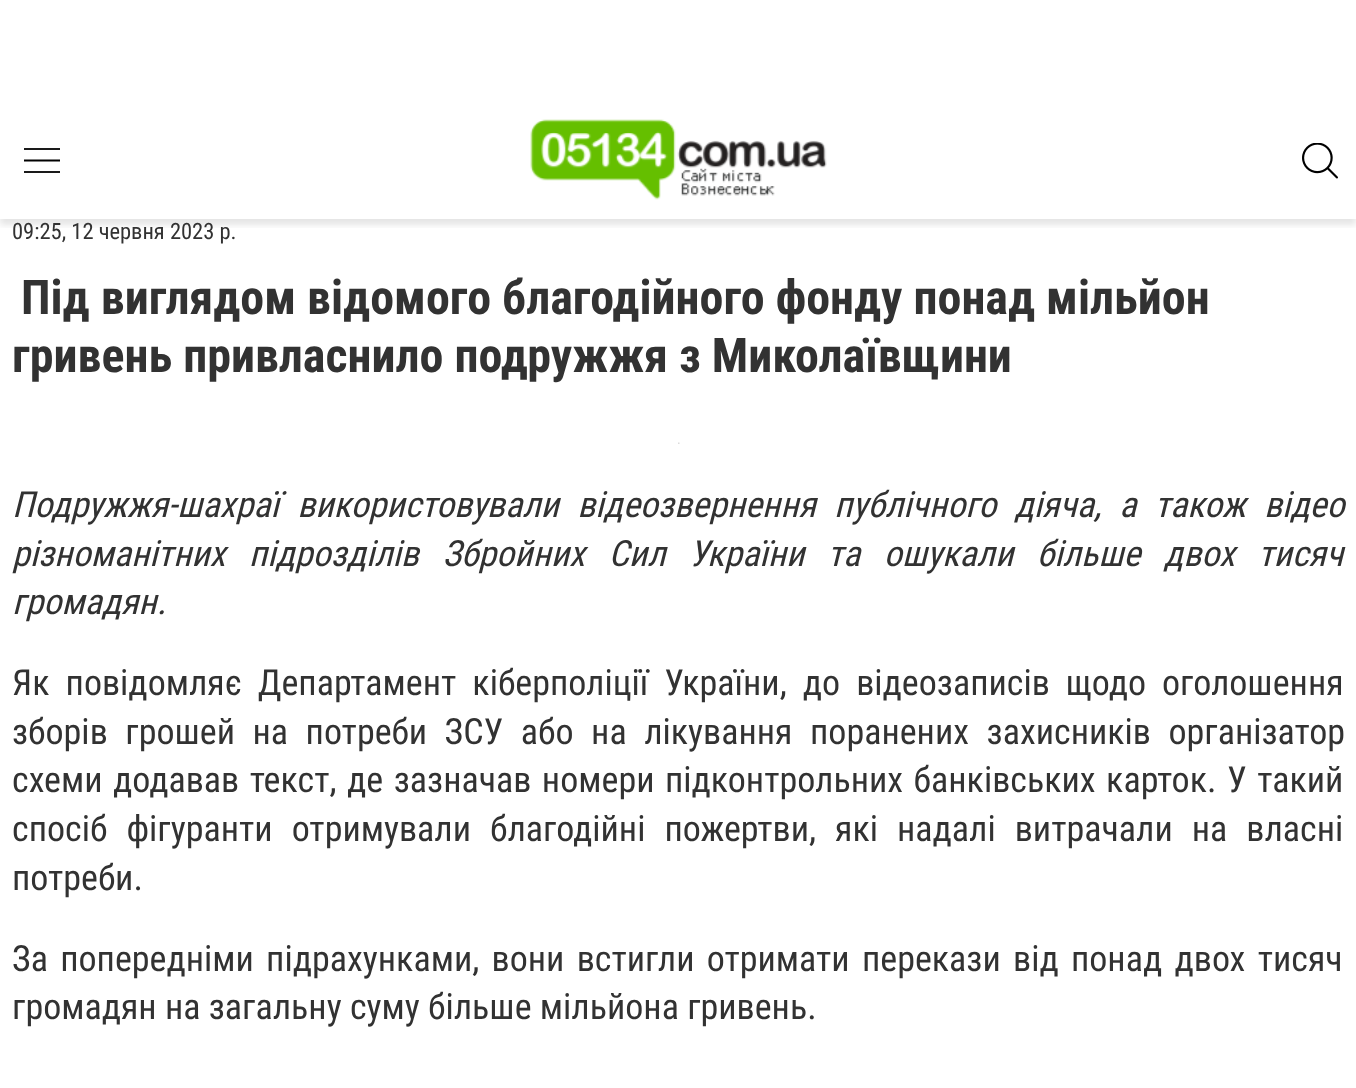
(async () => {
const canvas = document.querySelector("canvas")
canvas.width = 1356
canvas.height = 1088
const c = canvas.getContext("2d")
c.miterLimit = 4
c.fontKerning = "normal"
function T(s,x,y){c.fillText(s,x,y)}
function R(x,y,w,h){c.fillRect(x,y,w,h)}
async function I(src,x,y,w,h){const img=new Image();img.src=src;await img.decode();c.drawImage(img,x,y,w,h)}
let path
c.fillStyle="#fff"
R(0,0,1356,1088)
c.save()
c.beginPath()
c.rect(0,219,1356,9)
c.clip()
c.fillStyle="#0000001a"
c.filter="blur(3px)"
c.beginPath()
c.rect(0,101,1356,124)
c.fill()
c.filter="none"
c.restore()
c.fillStyle="#1a1a1a"
R(24,148,36,2)
path = new Path2D("M24 160.5h36")
c.strokeStyle="#000"
c.lineWidth=1.8
c.stroke(path)
R(24,171,36,2)
await I("1.png",530,119,297,81)
await I("2.png",1302,143,36,36)
c.font="22.5px Roboto Condensed"
c.fillStyle="#323232"
T("09:25, 12 червня 2023 р.",12,239)
c.font="bold 48px Roboto Condensed"
T("Під виглядом відомого благодійного фонду понад мільйон",21,314)
T("гривень привласнило подружжя з Миколаївщини",12,372)
await I("3.png",678,442,2,2)
c.wordSpacing="10px"
c.font="italic 36px Roboto Condensed"
T("Подружжя-шахраї використовували відеозвернення публічного діяча, а також відео",12,517)
c.wordSpacing="15.25px"
T("різноманітних підрозділів Збройних Сил України та ошукали більше двох тисяч",12,566)
c.wordSpacing="0px"
T("громадян.",12,614)
c.wordSpacing="7.75px"
c.font="36px Roboto Condensed"
T("Як повідомляє Департамент кіберполіції України, до відеозаписів щодо оголошення",12,695)
c.wordSpacing="9.25px"
T("зборів грошей на потреби ЗСУ або на лікування поранених захисників організатор",12,744)
c.wordSpacing="2.25px"
T("схеми додавав текст, де зазначав номери підконтрольних банківських карток. У такий",12,792)
c.wordSpacing="10.75px"
T("спосіб фігуранти отримували благодійні пожертви, які надалі витрачали на власні",12,841)
c.wordSpacing="0px"
T("потреби.",12,890)
c.wordSpacing="4px"
T("За попередніми підрахунками, вони встигли отримати перекази від понад двох тисяч",12,971)
c.wordSpacing="0px"
T("громадян на загальну суму більше мільйона гривень.",12,1019)
})()
